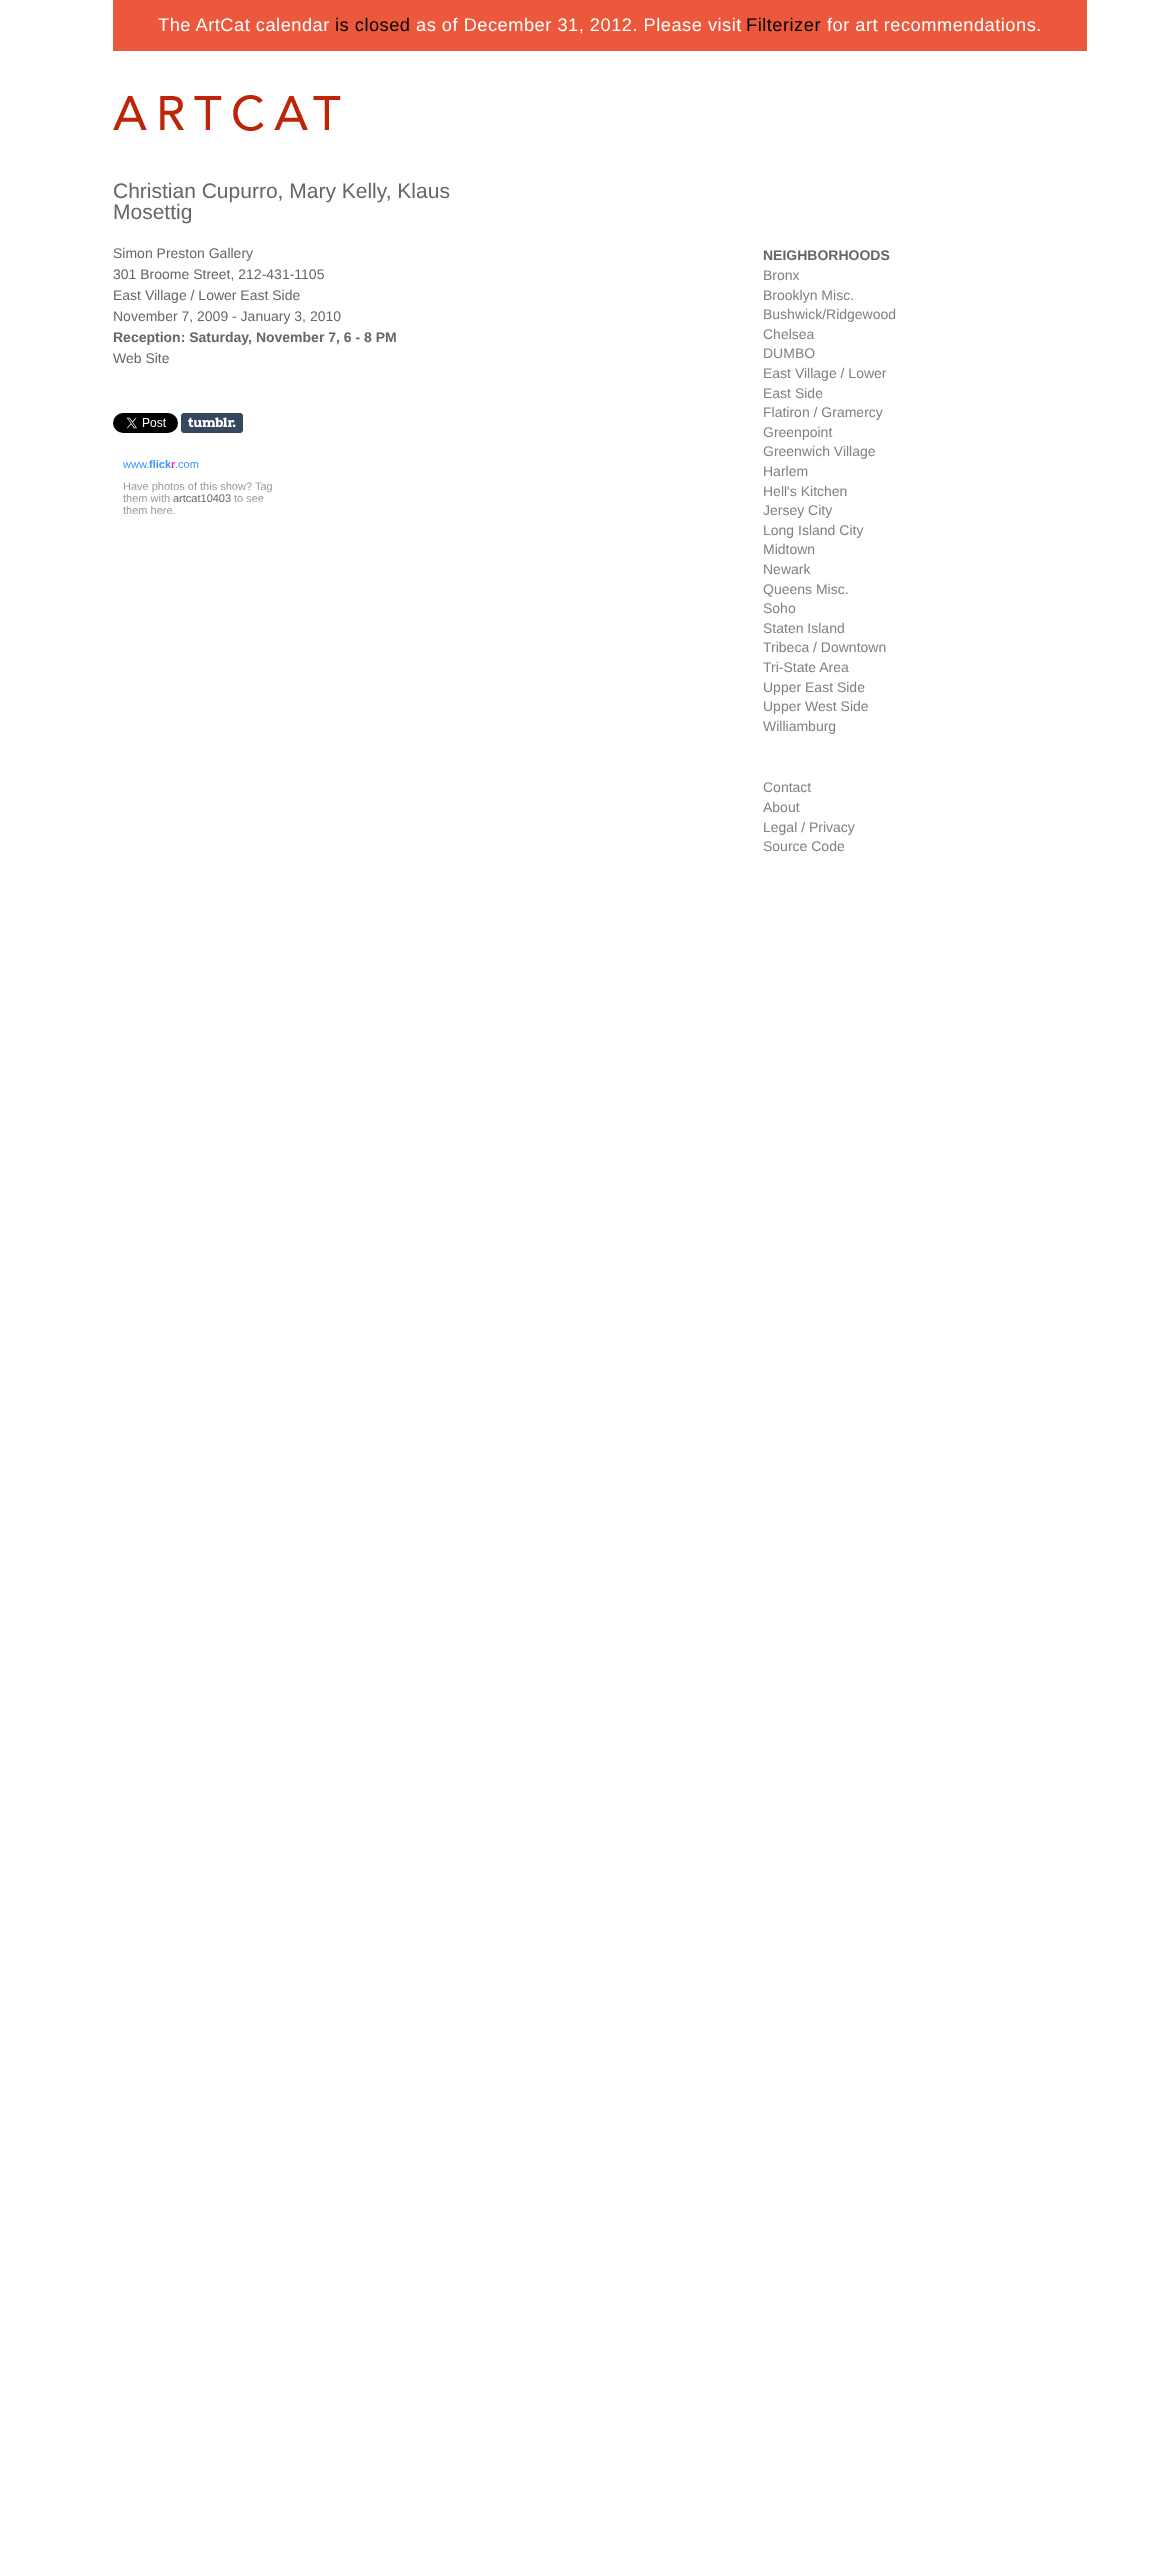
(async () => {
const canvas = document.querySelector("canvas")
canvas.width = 1175
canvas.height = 2573
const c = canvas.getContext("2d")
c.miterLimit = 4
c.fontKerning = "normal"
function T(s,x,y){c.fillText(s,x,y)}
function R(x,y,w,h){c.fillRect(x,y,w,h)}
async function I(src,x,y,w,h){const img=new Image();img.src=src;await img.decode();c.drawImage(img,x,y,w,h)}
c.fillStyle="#fff"
R(0,0,1175,2573)
c.fillStyle="#eb583c"
R(113,0,974,51)
c.letterSpacing="0.5px"
c.font="18.25px Liberation Sans"
c.fillStyle="#fff"
T("The ArtCat calendar",158,31)
c.fillStyle="#000"
T("is closed",335,31)
c.fillStyle="#fff"
T("as of December 31, 2012. Please visit",416,31)
c.fillStyle="#000"
T("Filterizer",746,31)
c.fillStyle="#fff"
T("for art recommendations.",827,31)
await I("1.png",113,95,228,36)
c.letterSpacing="0px"
c.font="21px Liberation Sans"
c.fillStyle="#666"
T("Christian Cupurro, Mary Kelly, Klaus",113,198)
T("Mosettig",113,219)
c.font="14px Liberation Sans"
T("Simon Preston Gallery",113,258)
T("301 Broome Street, 212-431-1105",113,279)
T("East Village / Lower East Side",113,300)
T("November 7, 2009 - January 3, 2010",113,321)
c.font="bold 14px Liberation Sans"
T("Reception: Saturday, November 7, 6 - 8 PM",113,342)
c.font="14px Liberation Sans"
T("Web Site",113,363)
await I("2.png",113,413,65,20)
await I("3.png",181,413,62,20)
c.font="11px Liberation Sans"
c.fillStyle="#3993ff"
T("www.",123,468)
c.font="bold 11px Liberation Sans"
T("flick",149,468)
c.fillStyle="#ff1c92"
T("r",171,468)
c.font="11px Liberation Sans"
c.fillStyle="#3993ff"
T(".com",175,468)
c.fillStyle="#999"
T("Have photos of this show? Tag",123,490)
T("them with",123,502)
c.fillStyle="#666"
T("artcat10403",173,502)
c.fillStyle="#999"
T("to see",234,502)
T("them here.",123,514)
c.font="bold 14px Liberation Sans"
c.fillStyle="#666"
T("NEIGHBORHOODS",763,260)
c.font="14px Liberation Sans"
c.fillStyle="#808080"
T("Bronx",763,280)
T("Brooklyn Misc.",763,300)
T("Bushwick/Ridgewood",763,319)
T("Chelsea",763,339)
T("DUMBO",763,358)
T("East Village / Lower",763,378)
T("East Side",763,398)
T("Flatiron / Gramercy",763,417)
T("Greenpoint",763,437)
T("Greenwich Village",763,456)
T("Harlem",763,476)
T("Hell's Kitchen",763,496)
T("Jersey City",763,515)
T("Long Island City",763,535)
T("Midtown",763,554)
T("Newark",763,574)
T("Queens Misc.",763,594)
T("Soho",763,613)
T("Staten Island",763,633)
T("Tribeca / Downtown",763,652)
T("Tri-State Area",763,672)
T("Upper East Side",763,692)
T("Upper West Side",763,711)
T("Williamburg",763,731)
T("Contact",763,792)
T("About",763,812)
T("Legal / Privacy",763,832)
T("Source Code",763,851)
})()
